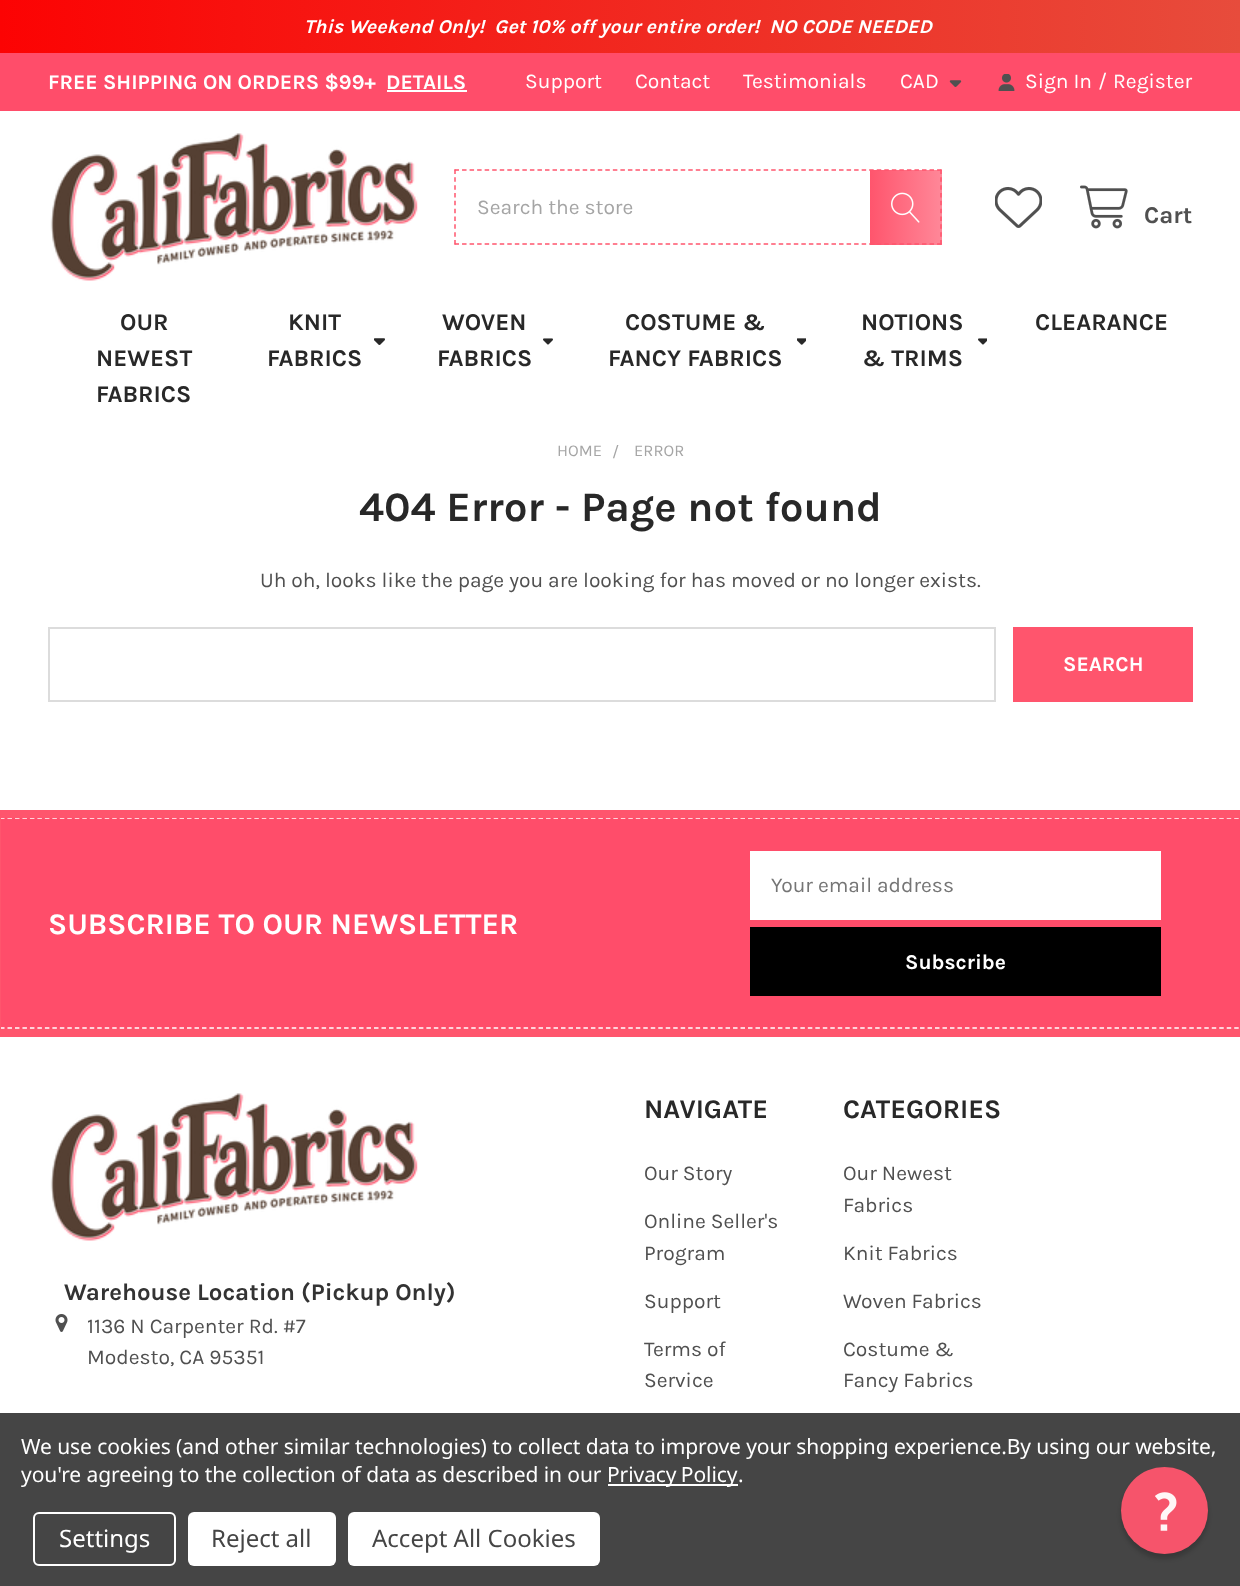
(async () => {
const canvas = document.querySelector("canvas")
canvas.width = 1240
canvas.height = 1586
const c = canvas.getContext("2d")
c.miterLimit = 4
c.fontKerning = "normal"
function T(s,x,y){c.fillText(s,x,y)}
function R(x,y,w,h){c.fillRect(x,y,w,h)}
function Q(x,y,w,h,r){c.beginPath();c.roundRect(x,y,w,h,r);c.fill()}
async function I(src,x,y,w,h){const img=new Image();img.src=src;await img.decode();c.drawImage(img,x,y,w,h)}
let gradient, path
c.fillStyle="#fff"
R(0,0,1240,1586)
gradient = c.createLinearGradient(0,26,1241,26)
gradient.addColorStop(0,"#fc0303")
gradient.addColorStop(1,"#e74c3c")
c.fillStyle = gradient
R(0,0,1240,53)
c.font="italic bold 19.5px Karla"
c.fillStyle="#fff"
T("This Weekend Only!  Get 10% off your entire order!  NO CODE NEEDED",304,33)
c.fillStyle="#ff4d6a"
R(0,53,1240,58)
c.font="bold 21px Karla"
c.fillStyle="#fff"
T("FREE SHIPPING ON ORDERS $99+",48,89)
T("DETAILS",386,89)
R(387,90,80,2)
c.font="21px Karla"
T("Support",525,88)
T("Contact",635,88)
T("Testimonials",743,88)
T("CAD",900,88)
await I("1.png",949,80,13,7)
await I("2.png",998,74,17,17)
T("Sign In",1025,88)
T("/",1098,88)
T("Register",1113,88)
await I("3.png",50,133,368,148)
path = new Path2D("M454.5 170h487.5")
c.strokeStyle="#ff556d"
c.lineWidth=1.5
c.setLineDash([4.5,3.04])
c.stroke(path)
path = new Path2D("M941 169.5v75")
c.setLineDash([4.5,3.33])
c.stroke(path)
path = new Path2D("M454.5 244h487.5")
c.setLineDash([4.5,3.04])
c.stroke(path)
path = new Path2D("M455 169.5v75")
c.setLineDash([4.5,3.33])
c.stroke(path)
c.fillStyle="#a5a5a5"
T("Search the store",477,214)
gradient = c.createLinearGradient(870,207,942,207)
gradient.addColorStop(0,"#ff556d")
gradient.addColorStop(1,"#ff556db3")
c.fillStyle = gradient
R(870,170,72,75)
await I("4.png",891,192,29,31)
await I("5.png",995,186,47,42)
await I("6.png",1080,185,48,44)
c.font="bold 24px Karla"
c.fillStyle="#505050"
T("Cart",1144,223)
c.fillStyle="#282828"
T("OUR",120,330)
T("NEWEST",96,366)
T("FABRICS",96,402)
T("KNIT",288,330)
await I("7.png",374,338,11,7)
T("FABRICS",267,366)
T("WOVEN",442,330)
await I("8.png",543,338,10,7)
T("FABRICS",437,366)
T("COSTUME &",625,330)
await I("9.png",797,338,9,7)
T("FANCY FABRICS",608,366)
T("NOTIONS",861,330)
await I("10.png",978,338,9,7)
T("& TRIMS",862,366)
T("CLEARANCE",1035,330)
c.font="16.5px Karla"
c.fillStyle="#a5a5a5"
T("HOME",557,456)
T("/",612,457)
T("ERROR",634,456)
c.font="bold 42px Karla"
c.fillStyle="#282828"
T("404 Error - Page not found",359,521)
c.font="21px Karla"
c.fillStyle="#505050"
T("Uh oh, looks like the page you are looking for has moved or no longer exists.",260,587)
c.strokeStyle="#dcdcdc"
c.lineWidth=2
c.setLineDash([])
c.strokeRect(49,628,946,73)
c.fillStyle="#ff556d"
R(1013,627,180,75)
c.font="bold 21px Karla"
c.fillStyle="#fff"
T("SEARCH",1063,671)
c.fillStyle="#ff4d6a"
R(1,818,1239,211)
path = new Path2D("M0 818h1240.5")
c.strokeStyle="#fff"
c.lineWidth=1.5
c.setLineDash([4.5,2.98])
c.stroke(path)
path = new Path2D("M0 1028h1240.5")
c.stroke(path)
c.strokeStyle="#ff556d"
c.lineWidth=8
c.setLineDash([])
c.strokeRect(-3,814,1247,219)
c.font="bold 30px Karla"
c.fillStyle="#fff"
T("SUBSCRIBE TO OUR NEWSLETTER",48,934)
R(750,851,411,69)
c.font="21px Karla"
c.fillStyle="#757575"
T("Your email address",771,892)
c.fillStyle="#000"
R(750,927,411,69)
c.font="bold 21px Karla"
c.fillStyle="#fff"
T("Subscribe",905,969)
await I("3.png",50,1093,368,148)
c.font="bold 24px Karla"
c.fillStyle="#333"
T("Warehouse Location (Pickup Only)",64,1300)
await I("11.png",55,1314,13,18)
c.font="21px Karla"
c.fillStyle="#505050"
T("1136 N Carpenter Rd. #7",87,1333)
T("Modesto, CA 95351",87,1364)
c.font="bold 27px Karla"
c.fillStyle="#282828"
T("NAVIGATE",644,1118)
c.font="21px Karla"
c.fillStyle="#505050"
T("Our Story",644,1180)
T("Online Seller's",644,1228)
T("Program",644,1260)
T("Support",644,1308)
T("Terms of",644,1356)
T("Service",644,1387)
c.font="bold 27px Karla"
c.fillStyle="#282828"
T("CATEGORIES",843,1118)
c.font="21px Karla"
c.fillStyle="#505050"
T("Our Newest",843,1180)
T("Fabrics",843,1212)
T("Knit Fabrics",843,1260)
T("Woven Fabrics",843,1308)
T("Costume &",843,1356)
T("Fancy Fabrics",843,1387)
c.fillStyle="#454545"
R(0,1413,1240,173)
c.letterSpacing="-0.08px"
c.font="21px Noto Sans"
c.fillStyle="#fff"
T("We use cookies (and other similar technologies) to collect data to improve your shopping experience.By using our website,",21,1454)
T("you're agreeing to the collection of data as described in our",21,1482)
R(608,1484,130,2)
c.wordSpacing="-1px"
T("Privacy Policy",607,1482)
c.wordSpacing="0px"
T(".",738,1482)
c.beginPath()
c.roundRect(34,1513,141,52,5)
c.strokeStyle="#fff"
c.lineWidth=2
c.stroke()
c.letterSpacing="0px"
c.font="24px Noto Sans"
T("Settings",59,1547)
Q(188,1512,148,54,6)
c.fillStyle="#454545"
T("Reject all",211,1547)
c.fillStyle="#fff"
Q(348,1512,252,54,6)
c.fillStyle="#454545"
T("Accept All Cookies",372,1547)
c.fillStyle="#03030333"
c.filter="blur(2px)"
c.beginPath()
c.roundRect(1121,1472,87,87,43.5)
c.fill()
c.filter="none"
c.fillStyle="#f6546b"
c.beginPath()
c.arc(1164.5,1510.5,43.5,0,7)
c.fill()
await I("12.png",1155,1492,22,39)
})()
